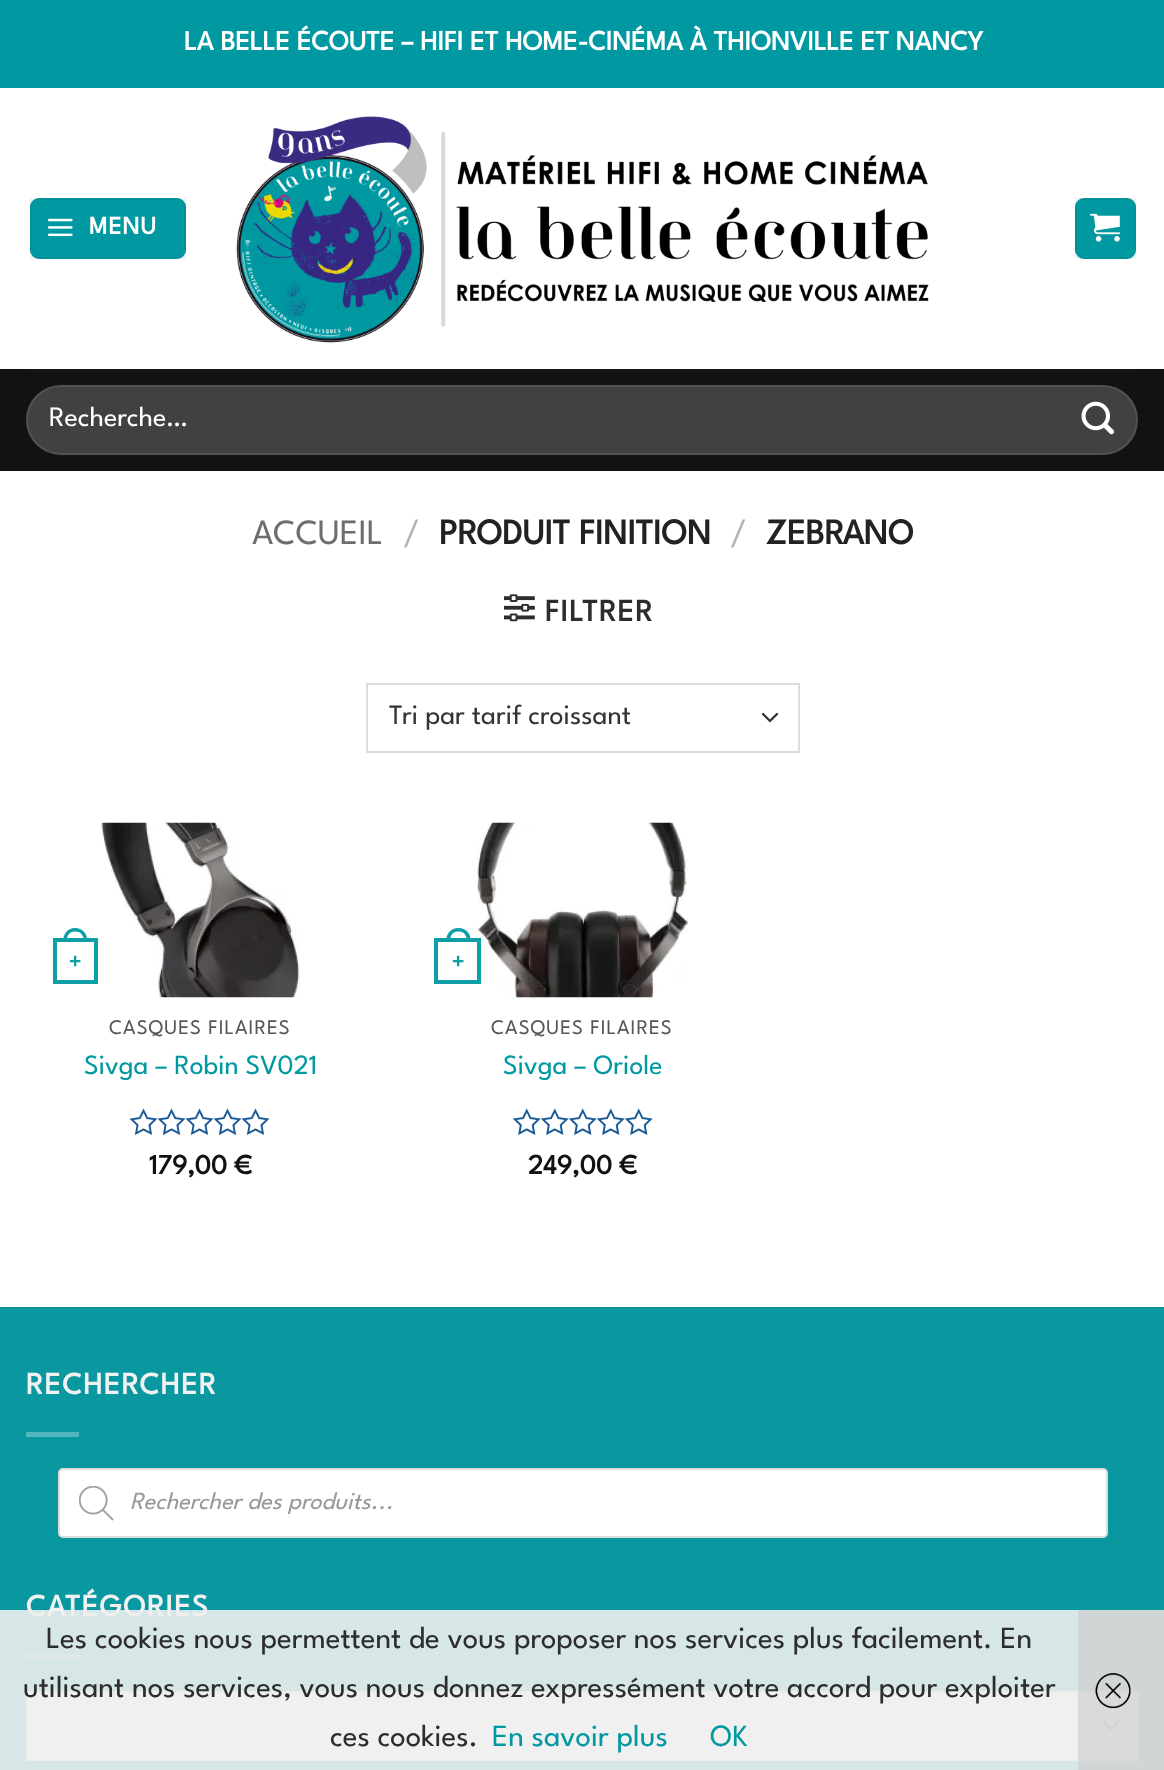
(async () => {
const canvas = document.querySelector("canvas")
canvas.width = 1164
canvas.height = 1770
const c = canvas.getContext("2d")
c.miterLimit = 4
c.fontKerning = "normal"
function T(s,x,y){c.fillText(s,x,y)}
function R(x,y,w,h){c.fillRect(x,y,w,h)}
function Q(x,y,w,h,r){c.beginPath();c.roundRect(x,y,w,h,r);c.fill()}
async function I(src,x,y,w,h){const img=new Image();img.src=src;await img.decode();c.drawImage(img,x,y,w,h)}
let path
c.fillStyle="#fff"
R(0,0,1164,1770)
c.fillStyle="#0099a1"
R(0,0,1164,88)
c.font="bold 27.75px League Spartan"
c.fillStyle="#fff"
T("LA BELLE ÉCOUTE – HIFI ET HOME-CINÉMA À THIONVILLE ET NANCY",184,50)
c.fillStyle="#0099a1"
Q(30,198,156,61,9)
c.strokeStyle="#0000000d"
c.lineWidth=2
c.strokeRect(31,199,154,59)
await I("1.png",48,218,25,19)
c.letterSpacing="1px"
c.font="bold 25px League Spartan"
c.fillStyle="#fff"
T("MENU",89,234)
await I("2.png",236,116,693,227)
c.fillStyle="#0099a1"
Q(1075,198,61,61,9)
c.strokeRect(1076,199,59,59)
await I("3.png",1090,213,30,29)
c.fillStyle="#121212"
R(0,369,1164,102)
c.fillStyle="#151515"
R(26,369,1113,2)
c.fillStyle="#414141"
Q(26,385,1112,70,35)
c.beginPath()
c.roundRect(27,386,1110,68,34)
c.strokeStyle="#ffffff17"
c.stroke()
c.letterSpacing="0px"
c.font="100 28px League Spartan"
c.fillStyle="#fff"
T("Recherche…",49,426)
await I("4.png",1081,401,34,34)
c.font="100 35.5px League Spartan"
c.fillStyle="#6e6e6e"
T("ACCUEIL",252,544)
c.fillStyle="#b2b2b2"
T("/",403,544)
c.font="bold 35.5px League Spartan"
c.fillStyle="#222"
T("PRODUIT FINITION",439,544)
c.font="100 35.5px League Spartan"
c.fillStyle="#b2b2b2"
T("/",730,544)
c.font="bold 35.5px League Spartan"
c.fillStyle="#222"
T("ZEBRANO",766,544)
await I("5.png",504,594,31,28)
c.letterSpacing="1.5px"
c.font="bold 30.8px League Spartan"
c.fillStyle="#2d2d2d"
T("FILTRER",545,621)
path = new Path2D("M763 714l7 7l7-7")
c.strokeStyle="#333"
c.lineWidth=2.3
c.lineCap="round"
c.lineJoin="round"
c.stroke(path)
c.strokeStyle="#ddd"
c.lineWidth=2
c.lineJoin="miter"
c.strokeRect(367,684,432,68)
c.letterSpacing="0px"
c.font="100 28px League Spartan"
c.fillStyle="#333"
T("Tri par tarif croissant",389,724)
c.strokeStyle="#0d9ea6"
c.lineWidth=4
c.strokeRect(55,940,41,42)
c.fillStyle="#0d9ea6"
path = new Path2D("M75 928c8.5 0 12.5 6.5 12.5 14h-24.5c0-7.5 4-14 12-14zm0 3.5c6.5 0 9 5 9 10.5h-17.5c0-5.5 2.5-10.5 8.5-10.5z")
c.fill(path,"evenodd")
c.font="bold 21px Liberation Sans"
T("+",69,968)
await I("6.png",101,822,199,176)
c.letterSpacing="1px"
c.font="100 20.75px League Spartan"
c.fillStyle="#575757"
T("CASQUES FILAIRES",109,1034)
c.letterSpacing="0px"
c.font="100 27.75px League Spartan"
c.fillStyle="#0099a1"
T("Sivga – Robin SV021",84,1074)
await I("7.png",130,1108,140,27)
c.font="bold 27.75px League Spartan"
c.fillStyle="#111"
T("179,00 €",149,1174)
await I("8.png",477,822,211,176)
c.strokeRect(436,940,43,42)
c.fillStyle="#0d9ea6"
path = new Path2D("M458.5 928c8.5 0 12.5 6.5 12.5 14h-25c0-7.5 4-14 12.5-14zm0 3.5c6.5 0 8.5 5 8.5 10.5h-17c0-5.5 2-10.5 8.5-10.5z")
c.fill(path,"evenodd")
c.font="bold 21px Liberation Sans"
T("+",452,968)
c.letterSpacing="1px"
c.font="100 20.75px League Spartan"
c.fillStyle="#575757"
T("CASQUES FILAIRES",491,1034)
c.letterSpacing="0px"
c.font="100 27.75px League Spartan"
c.fillStyle="#0099a1"
T("Sivga – Oriole",503,1074)
await I("9.png",513,1108,140,27)
c.font="bold 27.75px League Spartan"
c.fillStyle="#111"
T("249,00 €",528,1174)
c.fillStyle="#0997a0"
R(0,1309,1164,461)
c.fillStyle="#098f98"
R(0,1307,1164,2)
c.letterSpacing="1.5px"
c.font="bold 30.8px League Spartan"
c.fillStyle="#f1f1f1"
T("RECHERCHER",26,1394)
c.fillStyle="#53b6bd"
R(26,1432,53,5)
c.fillStyle="#fff"
c.beginPath()
c.roundRect(59,1469,1048,68,4)
c.fill()
c.strokeStyle="#ddd"
c.lineWidth=2
c.stroke()
await I("10.png",79,1486,35,35)
c.letterSpacing="0px"
c.font="italic 100 24.5px League Spartan"
c.fillStyle="#999"
T("Rechercher des produits...",130,1509)
c.letterSpacing="1.5px"
c.font="bold 30.8px League Spartan"
c.fillStyle="#f1f1f1"
T("CATÉGORIES",26,1616)
c.fillStyle="#53b6bd"
R(26,1654,53,5)
c.fillStyle="#fff"
R(28,1693,1109,66)
path = new Path2D("M1104 1722l7 7l7-7")
c.strokeStyle="#333"
c.lineWidth=2.3
c.lineJoin="round"
c.stroke(path)
c.strokeStyle="#ddd"
c.lineWidth=2
c.lineJoin="miter"
c.strokeRect(27,1692,1111,68)
c.fillStyle="#eeeeeee6"
R(0,1610,1164,160)
c.letterSpacing="0px"
c.font="100 30.8px League Spartan"
c.fillStyle="#2d2d2d"
T("Les cookies nous permettent de vous proposer nos services plus facilement. En",46,1648)
T("utilisant nos services, vous nous donnez expressément votre accord pour exploiter",23,1697)
T("ces cookies.",330,1746)
c.fillStyle="#0099a1"
T("En savoir plus",492,1746)
T("OK",710,1746)
c.fillStyle="#cccccc99"
R(1078,1610,86,160)
await I("11.png",1095,1673,36,36)
})()
